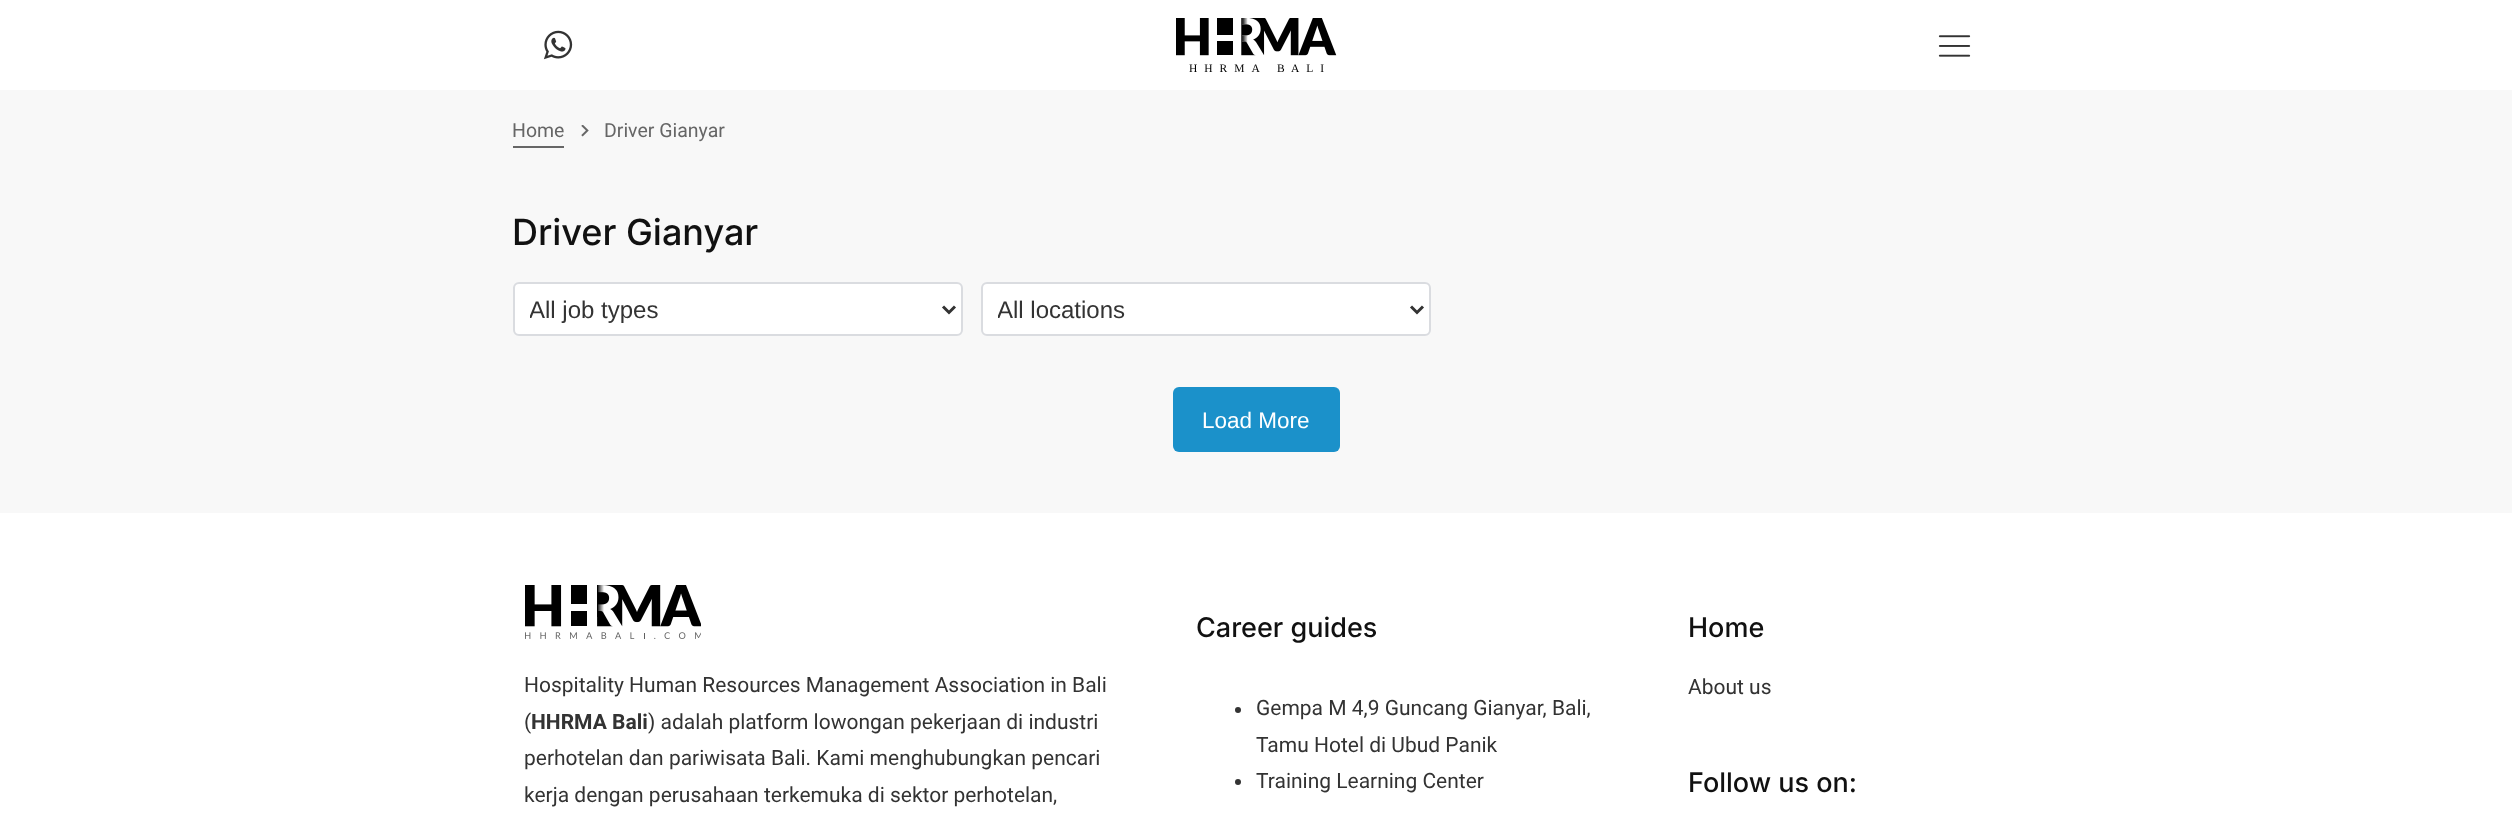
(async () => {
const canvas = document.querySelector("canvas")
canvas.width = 2512
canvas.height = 816
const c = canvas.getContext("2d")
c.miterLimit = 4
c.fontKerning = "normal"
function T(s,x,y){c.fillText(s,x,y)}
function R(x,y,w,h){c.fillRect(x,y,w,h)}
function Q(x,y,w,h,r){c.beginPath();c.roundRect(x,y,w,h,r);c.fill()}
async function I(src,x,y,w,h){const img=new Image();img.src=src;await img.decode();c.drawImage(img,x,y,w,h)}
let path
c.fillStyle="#fff"
R(0,0,2512,816)
await I("1.png",543,30,30,30)
await I("2.png",1938,35,33,22)
await I("3.png",1176,18,161,38)
c.letterSpacing="7px"
c.font="11.5px Liberation Serif"
c.fillStyle="#000"
T("HHRMA",1189,72)
T("B",1277,72)
T("ALI",1291,72)
c.fillStyle="#f8f8f8"
R(0,90,2512,423)
c.letterSpacing="0px"
c.font="19.5px Roboto"
c.fillStyle="#666"
T("Home",512,137)
R(513,146,51,2)
await I("4.png",581,125,8,12)
T("Driver Gianyar",604,137)
c.font="500 36px Inter"
c.fillStyle="#111"
T("Driver Gianyar",512,245)
c.fillStyle="#fff"
c.beginPath()
c.roundRect(514,283,448,52,5)
c.fill()
c.strokeStyle="#dadce0"
c.lineWidth=2
c.stroke()
path = new Path2D("M943 306.5l6 6l6-6")
c.strokeStyle="#333"
c.lineWidth=3
c.stroke(path)
c.save()
c.beginPath()
c.rect(530,296,399,28)
c.clip()
c.font="24px Liberation Sans"
c.fillStyle="#333"
T("All job types",529,318)
c.restore()
c.beginPath()
c.roundRect(982,283,448,52,5)
c.fill()
c.strokeStyle="#dadce0"
c.lineWidth=2
c.stroke()
path = new Path2D("M1411 306.5l6 6l6-6")
c.strokeStyle="#333"
c.lineWidth=3
c.stroke(path)
c.save()
c.beginPath()
c.rect(998,296,399,28)
c.clip()
c.font="24px Liberation Sans"
c.fillStyle="#333"
T("All locations",997,318)
c.restore()
c.fillStyle="#1b91ca"
Q(1173,387,167,65,6)
c.font="22.5px Liberation Sans"
c.fillStyle="#fff"
T("Load More",1202,428)
await I("5.png",525,585,176,54)
c.font="21px Roboto"
c.fillStyle="#333"
T("Hospitality Human Resources Management Association in Bali",524,692)
T("(",524,729)
c.font="bold 21px Roboto"
T("HHRMA Bali",531,729)
c.font="21px Roboto"
T(") adalah platform lowongan pekerjaan di industri",648,729)
T("perhotelan dan pariwisata Bali. Kami menghubungkan pencari",524,765)
T("kerja dengan perusahaan terkemuka di sektor perhotelan,",524,802)
c.font="500 27px Inter"
c.fillStyle="#111"
T("Career guides",1196,637)
c.fillStyle="#333"
c.beginPath()
c.arc(1238,710,3,0,7)
c.fill()
c.font="21px Roboto"
T("Gempa M 4,9 Guncang Gianyar, Bali,",1256,715)
T("Tamu Hotel di Ubud Panik",1256,752)
c.beginPath()
c.arc(1238,782,3,0,7)
c.fill()
T("Training Learning Center",1256,788)
c.font="500 27px Inter"
c.fillStyle="#111"
T("Home",1688,637)
c.font="21px Roboto"
c.fillStyle="#333"
T("About us",1688,694)
c.font="500 27px Inter"
c.fillStyle="#111"
T("Follow us on:",1688,792)
})()
